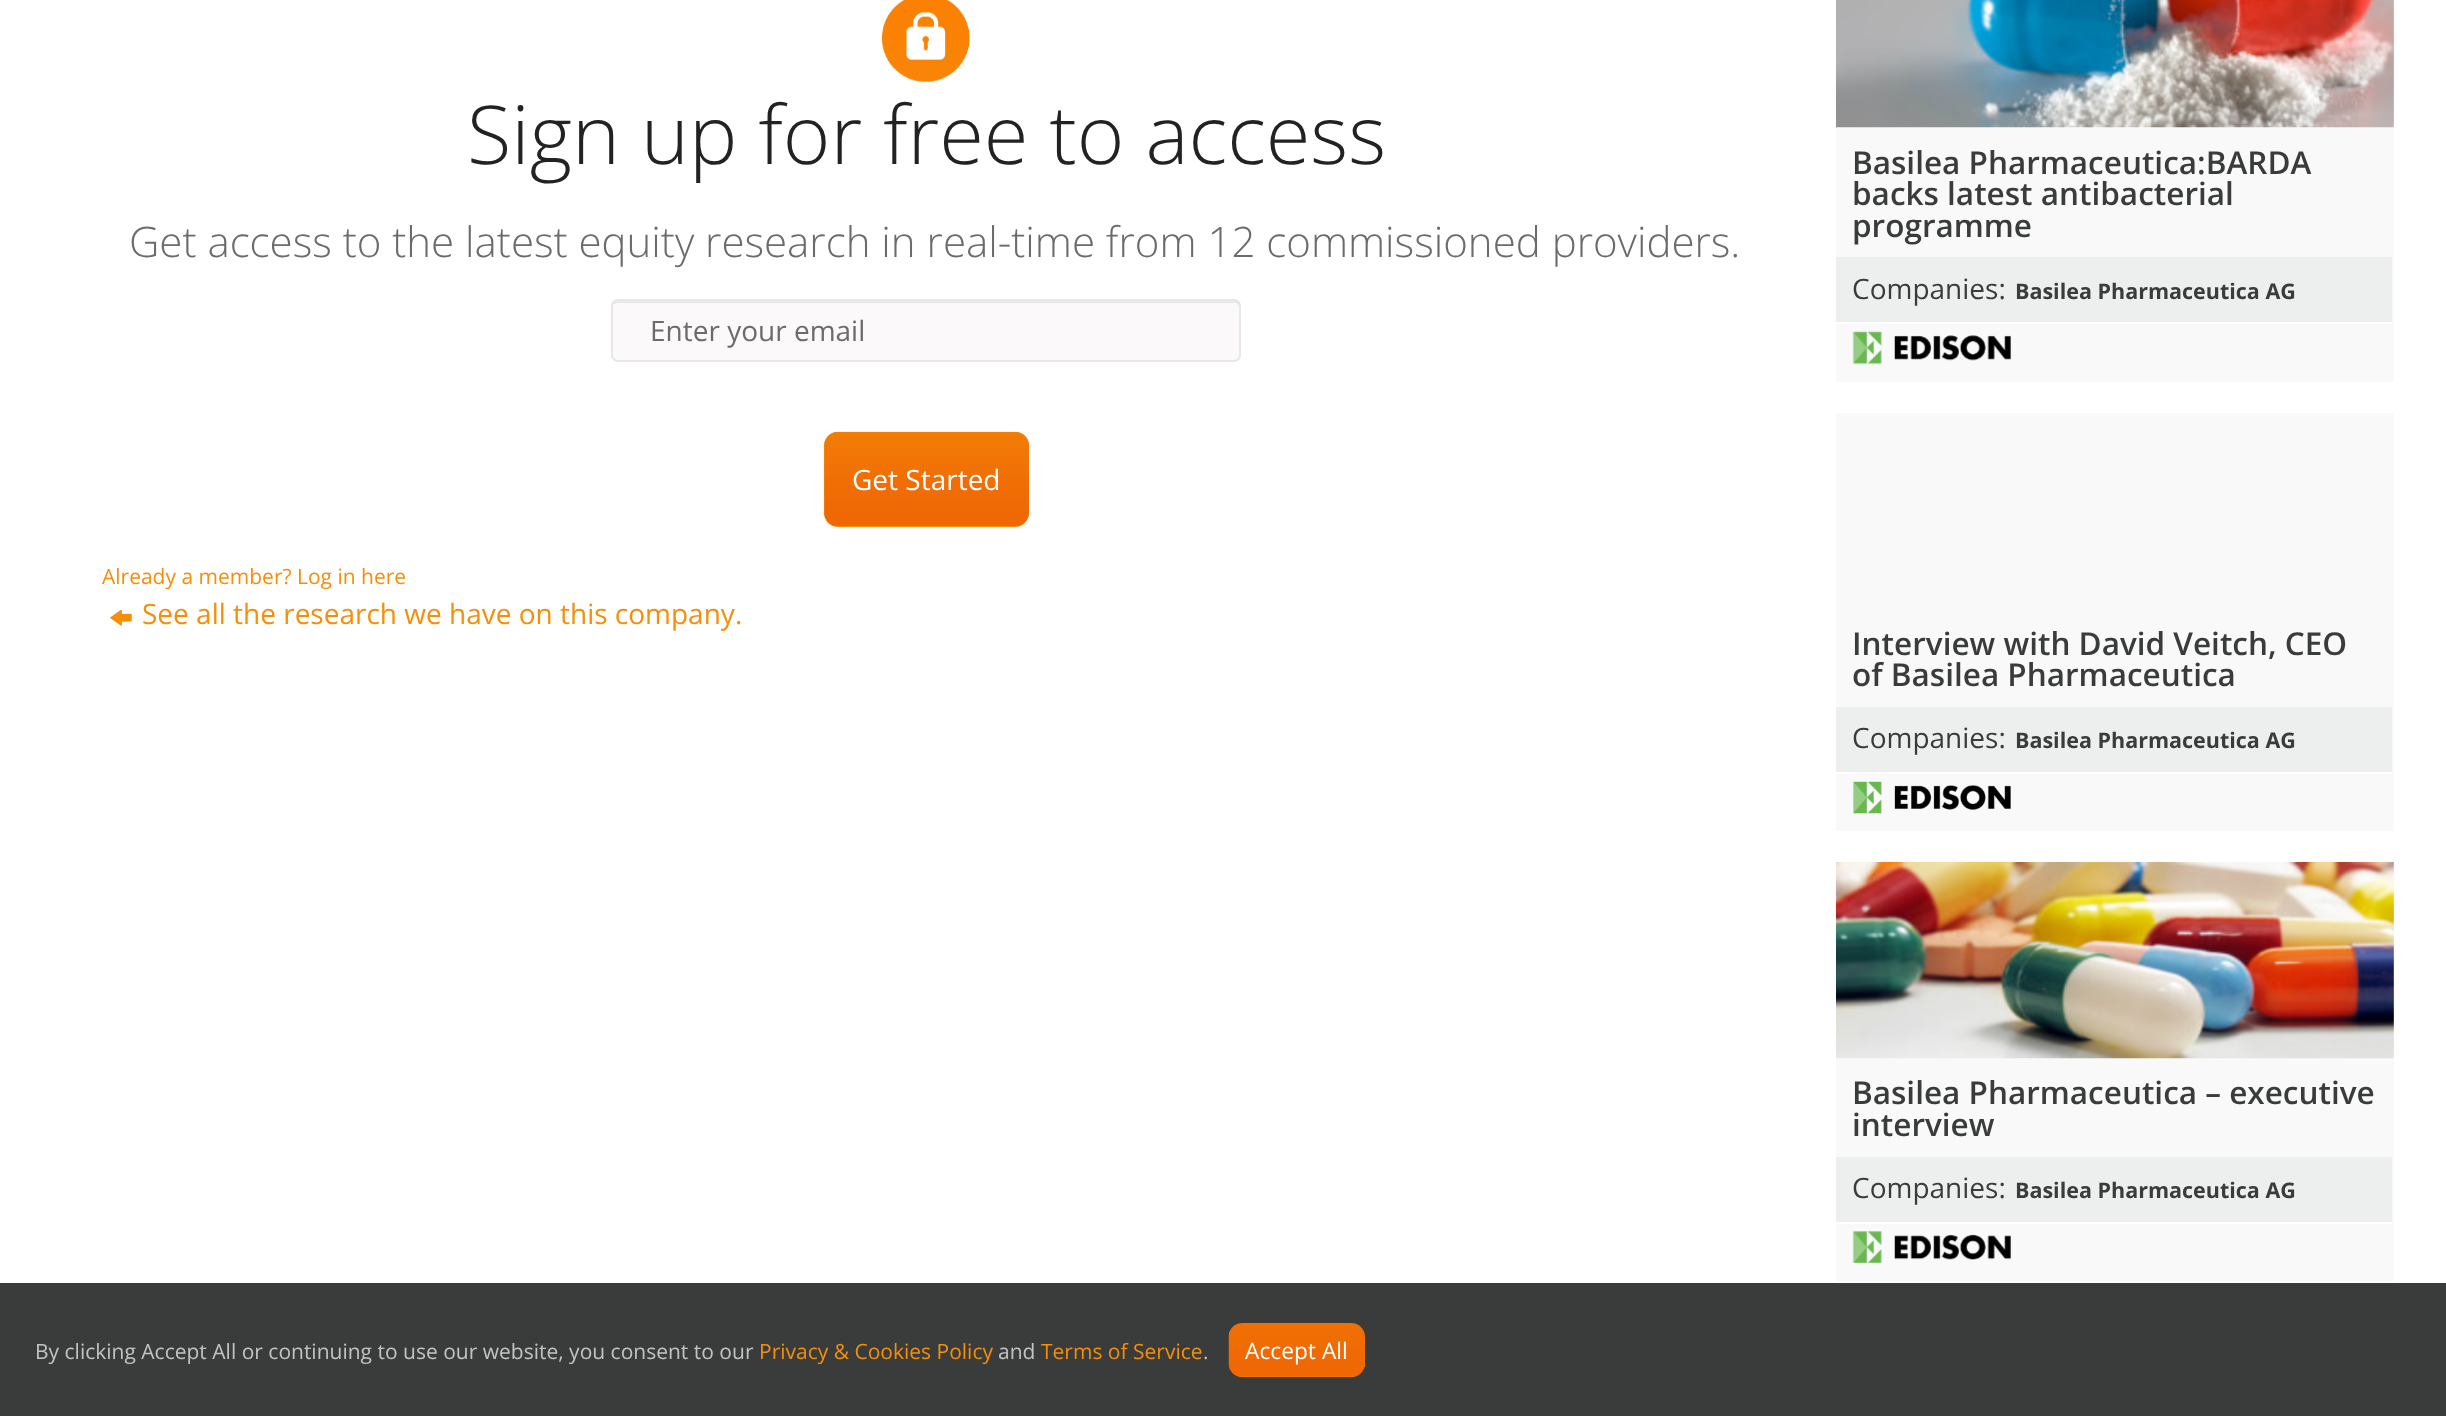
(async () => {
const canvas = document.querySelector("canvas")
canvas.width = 2446
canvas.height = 1416
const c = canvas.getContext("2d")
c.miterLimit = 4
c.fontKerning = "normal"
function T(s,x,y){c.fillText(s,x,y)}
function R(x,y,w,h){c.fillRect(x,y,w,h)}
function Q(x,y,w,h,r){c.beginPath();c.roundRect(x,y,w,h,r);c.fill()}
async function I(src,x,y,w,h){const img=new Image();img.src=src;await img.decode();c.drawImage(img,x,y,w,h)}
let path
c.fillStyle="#fff"
R(0,0,2446,1416)
await I("1.png",882,0,88,82)
c.font="300 81.25px Open Sans"
c.fillStyle="#222"
T("Sign up for free to access",467,164)
c.font="300 42px Open Sans"
c.fillStyle="#6b6b6b"
T("Get access to the latest equity research in real-time from 12 commissioned providers.",129,257)
c.fillStyle="#fbf9f9"
Q(611,299,630,63,7)
c.fillStyle="#e9e8e8"
path = new Path2D("M618 303h616c3 0 5 2 5 5v-2c0-3-2-5-5-5h-616c-2 0-5 2-5 4c1-1 3-2 5-2z")
c.fill(path)
c.beginPath()
c.roundRect(612,300,628,61,6)
c.strokeStyle="#e7e7e6"
c.lineWidth=2
c.stroke()
c.font="28px Open Sans"
c.fillStyle="#6b6b6b"
T("Enter your email",650,341)
c.fillStyle="#f58e09"
Q(824,432,205,95,14)
await I("2.png",824,431,205,95)
c.fillStyle="#fff"
T("Get Started",852,490)
c.font="21px Open Sans"
c.fillStyle="#f58e09"
T("Already a member? Log in here",102,584)
await I("3.png",110,609,22,17)
c.font="28px Open Sans"
T("See all the research we have on this company.",142,624)
c.fillStyle="#f9f9f9"
R(1836,0,558,382)
await I("4.png",1836,0,558,128)
c.font="600 31.5px Open Sans"
c.fillStyle="#3a3c3c"
T("Basilea Pharmaceutica:BARDA",1852,174)
T("backs latest antibacterial",1852,205)
T("programme",1852,237)
c.fillStyle="#edeeee"
R(1836,257,556,65)
c.fillStyle="#fff"
R(1836,322,556,2)
c.font="28px Open Sans"
c.fillStyle="#3a3c3c"
T("Companies:",1852,299)
c.font="bold 21.5px Open Sans"
T("Basilea Pharmaceutica AG",2015,299)
await I("5.png",1852,331,159,34)
c.fillStyle="#f9f9f9"
R(1836,413,558,418)
c.font="600 31.5px Open Sans"
c.fillStyle="#3a3c3c"
T("Interview with David Veitch, CEO",1852,655)
T("of Basilea Pharmaceutica",1852,686)
c.fillStyle="#edeeee"
R(1836,707,556,65)
c.fillStyle="#fff"
R(1836,772,556,2)
c.font="28px Open Sans"
c.fillStyle="#3a3c3c"
T("Companies:",1852,748)
c.font="bold 21.5px Open Sans"
T("Basilea Pharmaceutica AG",2015,748)
await I("6.png",1853,781,158,33)
c.fillStyle="#f9f9f9"
R(1836,863,558,418)
await I("7.png",1836,862,558,197)
c.font="600 31.5px Open Sans"
c.fillStyle="#3a3c3c"
T("Basilea Pharmaceutica – executive",1852,1104)
T("interview",1852,1136)
c.fillStyle="#edeeee"
R(1836,1157,556,65)
c.fillStyle="#fff"
R(1836,1222,556,2)
c.font="28px Open Sans"
c.fillStyle="#3a3c3c"
T("Companies:",1852,1198)
c.font="bold 21.5px Open Sans"
T("Basilea Pharmaceutica AG",2015,1198)
await I("8.png",1852,1231,159,32)
R(0,1283,2446,133)
c.font="21px Open Sans"
c.fillStyle="#c2c2c2"
T("By clicking Accept All or continuing to use our website, you consent to our",35,1359)
c.fillStyle="#f58e09"
T("Privacy & Cookies Policy",759,1359)
c.fillStyle="#c2c2c2"
T("and",998,1359)
c.fillStyle="#f58e09"
T("Terms of Service",1041,1359)
c.fillStyle="#c2c2c2"
T(".",1203,1359)
c.fillStyle="#f58e09"
R(1364,1364,1,3)
await I("9.png",1228,1323,137,55)
c.font="22.75px Open Sans"
c.fillStyle="#fff"
T("Accept All",1245,1359)
})()
